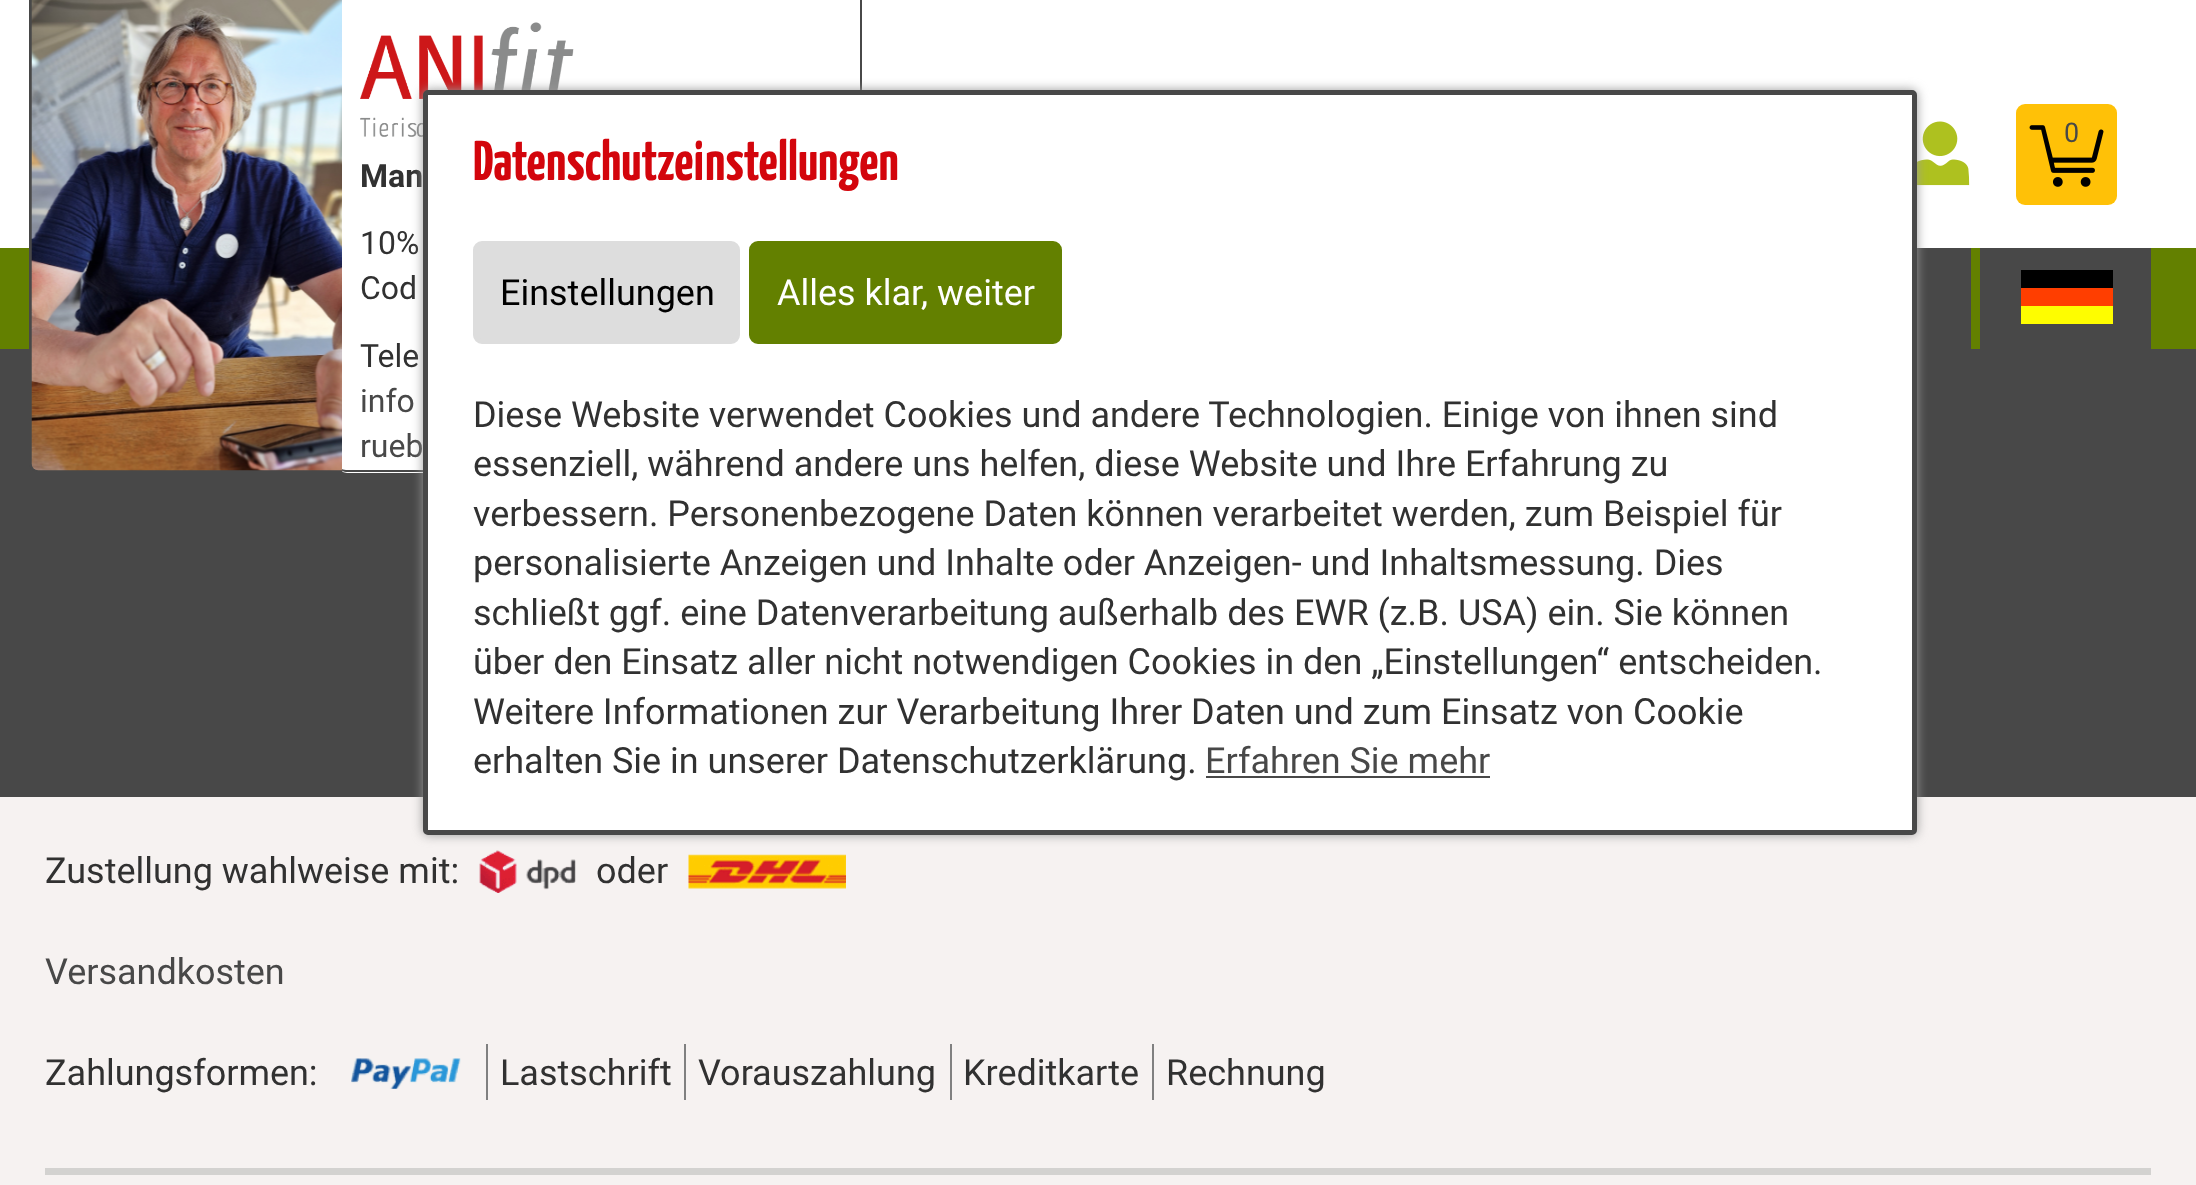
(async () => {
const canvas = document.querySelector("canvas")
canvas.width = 2196
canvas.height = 1185
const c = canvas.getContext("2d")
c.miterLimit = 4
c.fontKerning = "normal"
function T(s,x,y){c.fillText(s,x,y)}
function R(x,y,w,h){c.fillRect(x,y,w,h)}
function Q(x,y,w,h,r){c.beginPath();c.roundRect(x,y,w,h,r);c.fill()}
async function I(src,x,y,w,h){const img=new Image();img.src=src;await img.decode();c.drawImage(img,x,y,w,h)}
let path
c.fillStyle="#484848"
R(0,0,2196,1185)
c.fillStyle="#fff"
R(0,0,2196,248)
c.fillStyle="#638000"
R(0,248,2196,101)
await I("1.png",1917,121,53,65)
c.fillStyle="#ffc107"
Q(2016,104,101,101,9)
await I("2.png",2029,125,75,62)
c.font="27px Roboto"
c.fillStyle="#484848"
T("0",2064,142)
c.fillStyle="#fff"
c.beginPath()
c.roundRect(338,0,524,473,[0,0,9,9])
c.fill()
c.fillStyle="#484848"
path = new Path2D("M338 0h524v464c0 4-4 8-9 8h-507c-4 0-8-4-8-8zm0 0h522v464c0 3-4 6-7 6h-507c-4 0-8-3-8-6z")
c.fill(path,"evenodd")
path = new Path2D("M29 0h313v472h-304c-5 0-9-4-9-8zm3 0h310v470h-304c-3 0-6-3-6-6z")
c.fill(path,"evenodd")
await I("3.png",31,0,311,471)
await I("4.png",360,22,214,115)
c.font="bold 32px Roboto"
c.fillStyle="#313131"
T("Man",360,187)
c.font="32px Roboto"
T("10%",360,254)
T("Cod",360,299)
T("Tele",360,367)
c.fillStyle="#484848"
T("info",360,412)
T("rueb",360,457)
R(1917,248,54,101)
R(1980,248,171,101)
c.fillStyle="#000"
R(2021,270,92,18)
c.fillStyle="#ff3e00"
R(2021,288,92,18)
c.fillStyle="#fefd00"
R(2021,306,92,18)
c.fillStyle="#f6f2f1"
R(0,797,2196,388)
await I("5.png",479,850,97,43)
c.fillStyle="#999"
c.filter="blur(5.5px)"
c.beginPath()
c.roundRect(423,90,1494,745,5)
c.fill()
c.filter="none"
c.fillStyle="#fff"
c.beginPath()
c.roundRect(425.5,92.5,1489,740,2.5)
c.fill()
c.strokeStyle="#484848"
c.lineWidth=5
c.stroke()
c.font="bold 56.25px Yanone Kaffeesatz"
c.fillStyle="#d3050c"
T("Datenschutzeinstellungen",473,180)
c.fillStyle="#ddd"
c.beginPath()
c.roundRect(475.5,243.5,262,98,6.5)
c.fill()
c.strokeStyle="#ddd"
c.stroke()
c.font="36px Roboto"
c.fillStyle="#000"
T("Einstellungen",500,305)
c.fillStyle="#638000"
c.beginPath()
c.roundRect(751.5,243.5,308,98,6.5)
c.fill()
c.strokeStyle="#638000"
c.stroke()
c.fillStyle="#fff"
T("Alles klar, weiter",777,305)
c.fillStyle="#313131"
T("Diese Website verwendet Cookies und andere Technologien. Einige von ihnen sind",473,427)
T("essenziell, während andere uns helfen, diese Website und Ihre Erfahrung zu",473,476)
T("verbessern. Personenbezogene Daten können verarbeitet werden, zum Beispiel für",473,526)
T("personalisierte Anzeigen und Inhalte oder Anzeigen- und Inhaltsmessung. Dies",473,575)
T("schließt ggf. eine Datenverarbeitung außerhalb des EWR (z.B. USA) ein. Sie können",473,625)
T("über den Einsatz aller nicht notwendigen Cookies in den „Einstellungen“ entscheiden.",473,674)
T("Weitere Informationen zur Verarbeitung Ihrer Daten und zum Einsatz von Cookie",473,724)
T("erhalten Sie in unserer Datenschutzerklärung.",473,773)
c.fillStyle="#484848"
T("Erfahren Sie mehr",1205,773)
R(1206,776,284,2)
c.fillStyle="#d3d2d0"
R(45,1168,2106,7)
c.fillStyle="#313131"
T("Zustellung wahlweise mit:",45,883)
T("oder",596,883)
await I("6.png",688,854,158,35)
c.fillStyle="#484848"
T("Versandkosten",45,984)
c.fillStyle="#313131"
T("Zahlungsformen:",45,1085)
await I("7.png",351,1058,110,31)
c.fillStyle="#808080"
R(486,1044,2,56)
c.fillStyle="#313131"
T("Lastschrift",500,1085)
c.fillStyle="#808080"
R(684,1044,2,56)
c.fillStyle="#313131"
T("Vorauszahlung",698,1085)
c.fillStyle="#808080"
R(950,1044,2,56)
c.fillStyle="#313131"
T("Kreditkarte",963,1085)
c.fillStyle="#808080"
R(1152,1044,2,56)
c.fillStyle="#313131"
T("Rechnung",1166,1085)
})()
